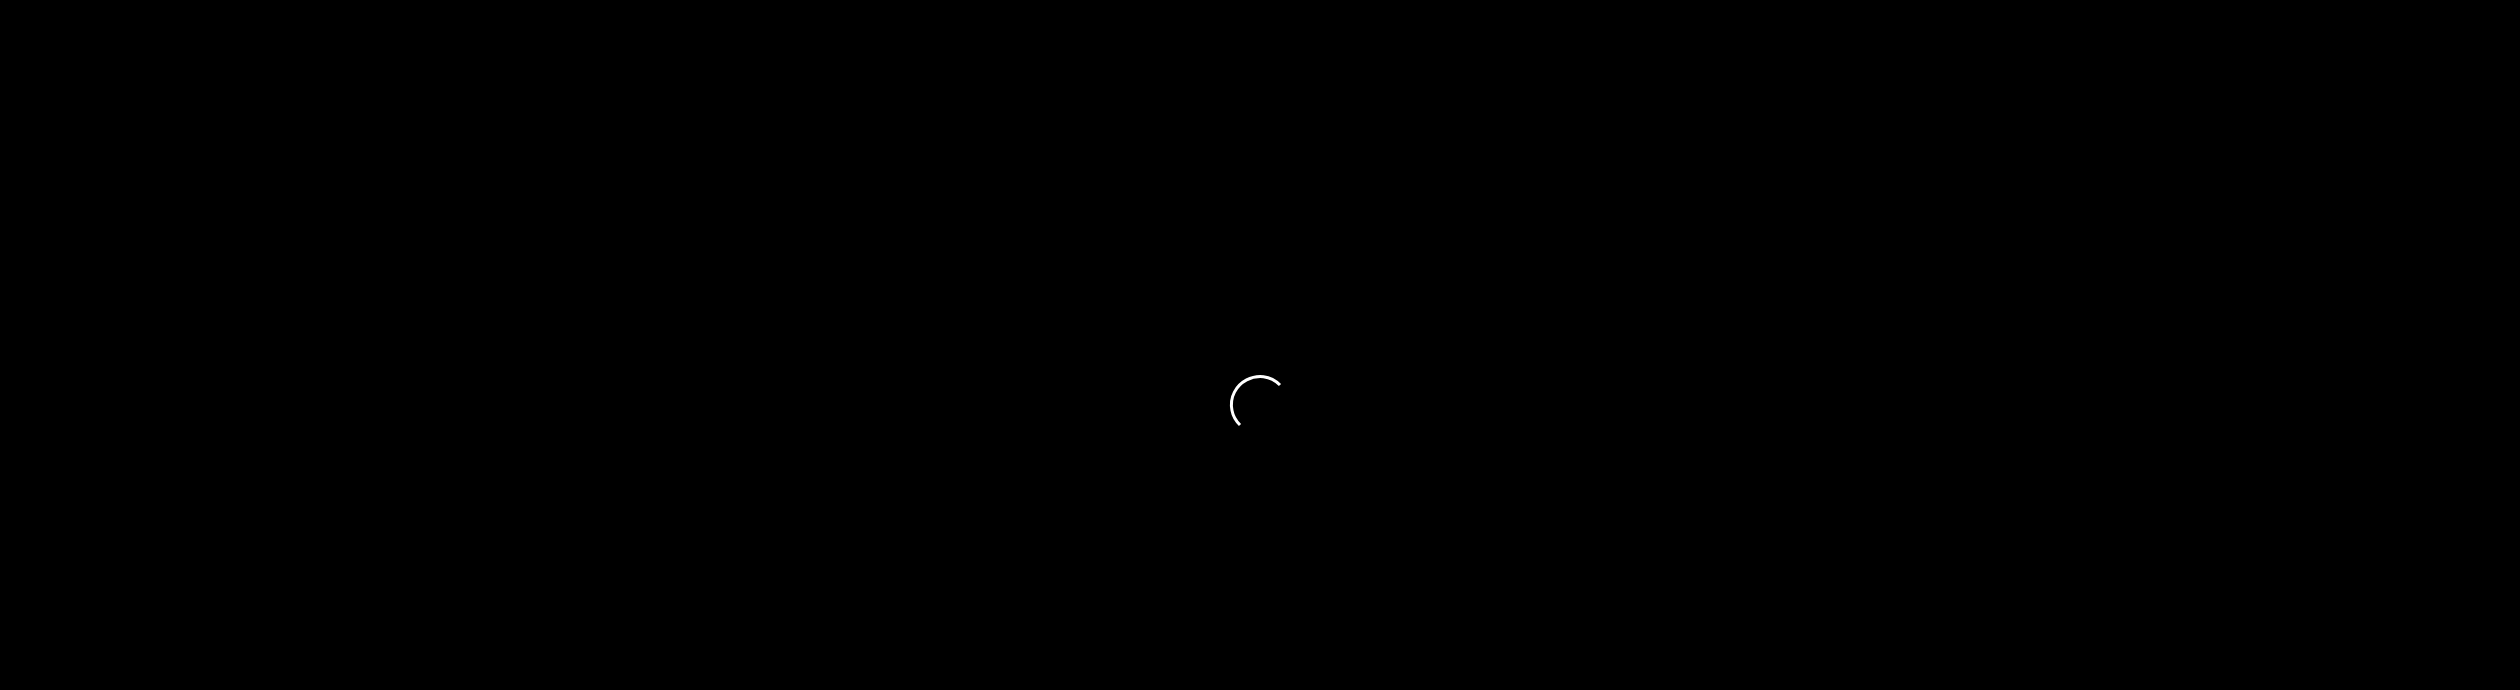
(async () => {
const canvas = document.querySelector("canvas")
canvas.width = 2520
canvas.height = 690
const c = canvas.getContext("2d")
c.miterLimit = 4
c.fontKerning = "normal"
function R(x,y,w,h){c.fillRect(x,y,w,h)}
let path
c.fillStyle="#000"
R(0,0,2520,690)
path = new Path2D("M1240 425c-4-4-7-9-8-14.5c-5.5-27.5 28.5-45.5 48-25.5")
c.strokeStyle="#fff"
c.lineWidth=3
c.stroke(path)
})()
